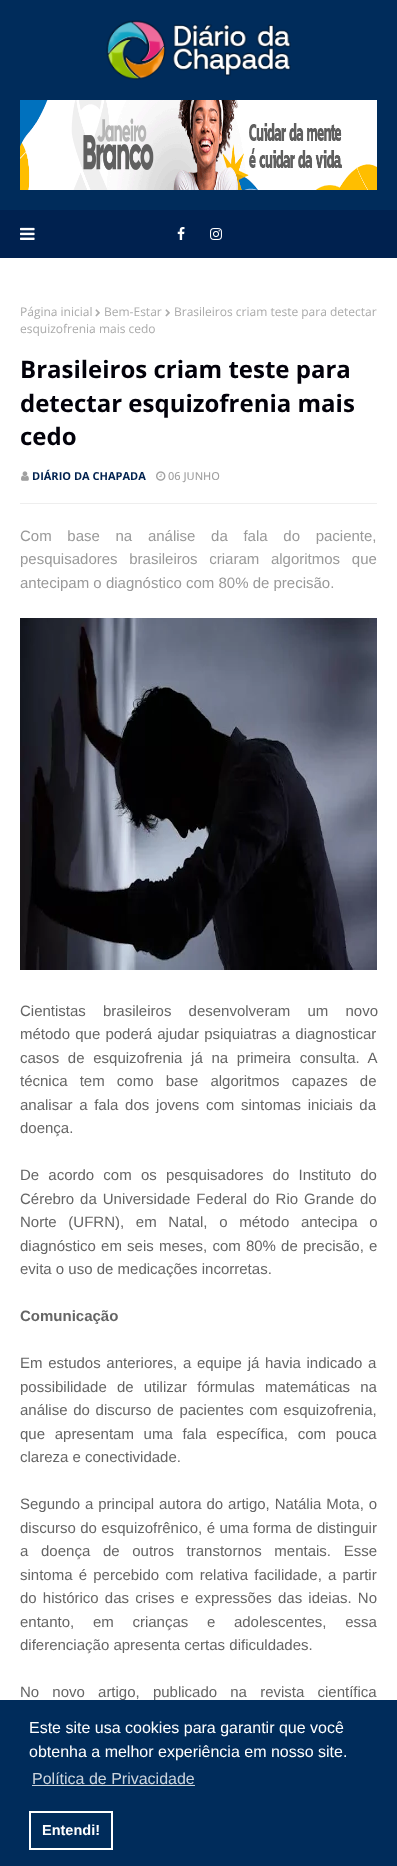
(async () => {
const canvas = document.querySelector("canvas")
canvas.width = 397
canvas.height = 1866
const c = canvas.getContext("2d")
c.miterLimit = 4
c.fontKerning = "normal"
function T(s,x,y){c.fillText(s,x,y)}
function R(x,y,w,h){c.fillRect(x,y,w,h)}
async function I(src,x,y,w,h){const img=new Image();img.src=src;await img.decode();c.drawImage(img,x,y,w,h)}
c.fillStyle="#fff"
R(0,0,397,1866)
c.fillStyle="#002c5b"
R(0,0,397,210)
await I("1.png",106,20,185,60)
await I("2.png",20,100,357,90)
c.fillStyle="#00214f"
R(0,210,397,48)
await I("3.png",20,227,15,13)
await I("4.png",177,227,8,13)
await I("5.png",210,228,12,12)
c.font="12px Open Sans"
c.fillStyle="#aaa"
T("Página inicial",20,316)
await I("6.png",95,309,5,8)
T("Bem-Estar",104,316)
await I("6.png",165,309,5,8)
T("Brasileiros criam teste para detectar",174,316)
T("esquizofrenia mais cedo",20,333)
c.font="bold 24px Open Sans"
c.fillStyle="#02010a"
T("Brasileiros criam teste para",20,378)
T("detectar esquizofrenia mais",20,412)
T("cedo",20,445)
await I("7.png",21,471,8,10)
c.font="bold 11px Open Sans"
c.fillStyle="#00214f"
T("DIÁRIO DA CHAPADA",32,480)
await I("8.png",156,471,10,10)
c.font="500 11px Open Sans"
c.fillStyle="#a0a0a0"
T("06 JUNHO",168,480)
c.fillStyle="#eee"
R(20,503,357,1)
c.wordSpacing="11.5px"
c.font="15px Liberation Sans"
c.fillStyle="#999"
T("Com base na análise da fala do paciente,",20,541)
c.wordSpacing="7.5px"
T("pesquisadores brasileiros criaram algoritmos que",20,564)
c.wordSpacing="0px"
T("antecipam o diagnóstico com 80% de precisão.",20,588)
await I("9.png",20,618,357,352)
c.wordSpacing="13px"
c.fillStyle="#656565"
T("Cientistas brasileiros desenvolveram um novo",20,1016)
c.wordSpacing="1px"
T("método que poderá ajudar psiquiatras a diagnosticar",20,1039)
c.wordSpacing="4.5px"
T("casos de esquizofrenia já na primeira consulta. A",20,1063)
c.wordSpacing="8px"
T("técnica tem como base algoritmos capazes de",20,1086)
c.wordSpacing="2.5px"
T("analisar a fala dos jovens com sintomas iniciais da",20,1110)
c.wordSpacing="0px"
T("doença.",20,1133)
c.wordSpacing="5px"
T("De acordo com os pesquisadores do Instituto do",20,1180)
c.wordSpacing="1.75px"
T("Cérebro da Universidade Federal do Rio Grande do",20,1204)
c.wordSpacing="7.5px"
T("Norte (UFRN), em Natal, o método antecipa o",20,1227)
c.wordSpacing="1px"
T("diagnóstico em seis meses, com 80% de precisão, e",20,1251)
c.wordSpacing="0px"
T("evita o uso de medicações incorretas.",20,1274)
c.font="bold 15px Liberation Sans"
T("Comunicação",20,1321)
c.wordSpacing="1.5px"
c.font="15px Liberation Sans"
T("Em estudos anteriores, a equipe já havia indicado a",20,1368)
c.wordSpacing="6px"
T("possibilidade de utilizar fórmulas matemáticas na",20,1392)
c.wordSpacing="1.5px"
T("análise do discurso de pacientes com esquizofrenia,",20,1415)
c.wordSpacing="5.5px"
T("que apresentam uma fala específica, com pouca",20,1439)
c.wordSpacing="0px"
T("clareza e conectividade.",20,1462)
c.wordSpacing="0.75px"
T("Segundo a principal autora do artigo, Natália Mota, o",20,1509)
c.wordSpacing="0.25px"
T("discurso do esquizofrênico, é uma forma de distinguir",20,1533)
c.wordSpacing="8.5px"
T("a doença de outros transtornos mentais. Esse",20,1556)
c.wordSpacing="2px"
T("sintoma é percebido com relativa facilidade, a partir",20,1580)
T("do histórico das crises e expressões das ideias. No",20,1603)
c.wordSpacing="14.5px"
T("entanto, em crianças e adolescentes, essa",20,1627)
c.wordSpacing="0px"
T("diferenciação apresenta certas dificuldades.",20,1650)
c.wordSpacing="9px"
T("No novo artigo, publicado na revista científica",20,1697)
c.fillStyle="#002c5b"
R(0,1700,397,166)
c.wordSpacing="0px"
c.font="16px Liberation Sans"
c.fillStyle="#fff"
T("Este site usa cookies para garantir que você",29,1733)
T("obtenha a melhor experiência em nosso site.",29,1757)
c.fillStyle="#ccd5de"
T("Política de Privacidade",32,1784)
R(32,1785,163,1)
c.strokeStyle="#fff"
c.lineWidth=2
c.strokeRect(30,1812,82,37)
c.font="bold 14.5px Liberation Sans"
c.fillStyle="#fff"
T("Entendi!",42,1835)
})()
